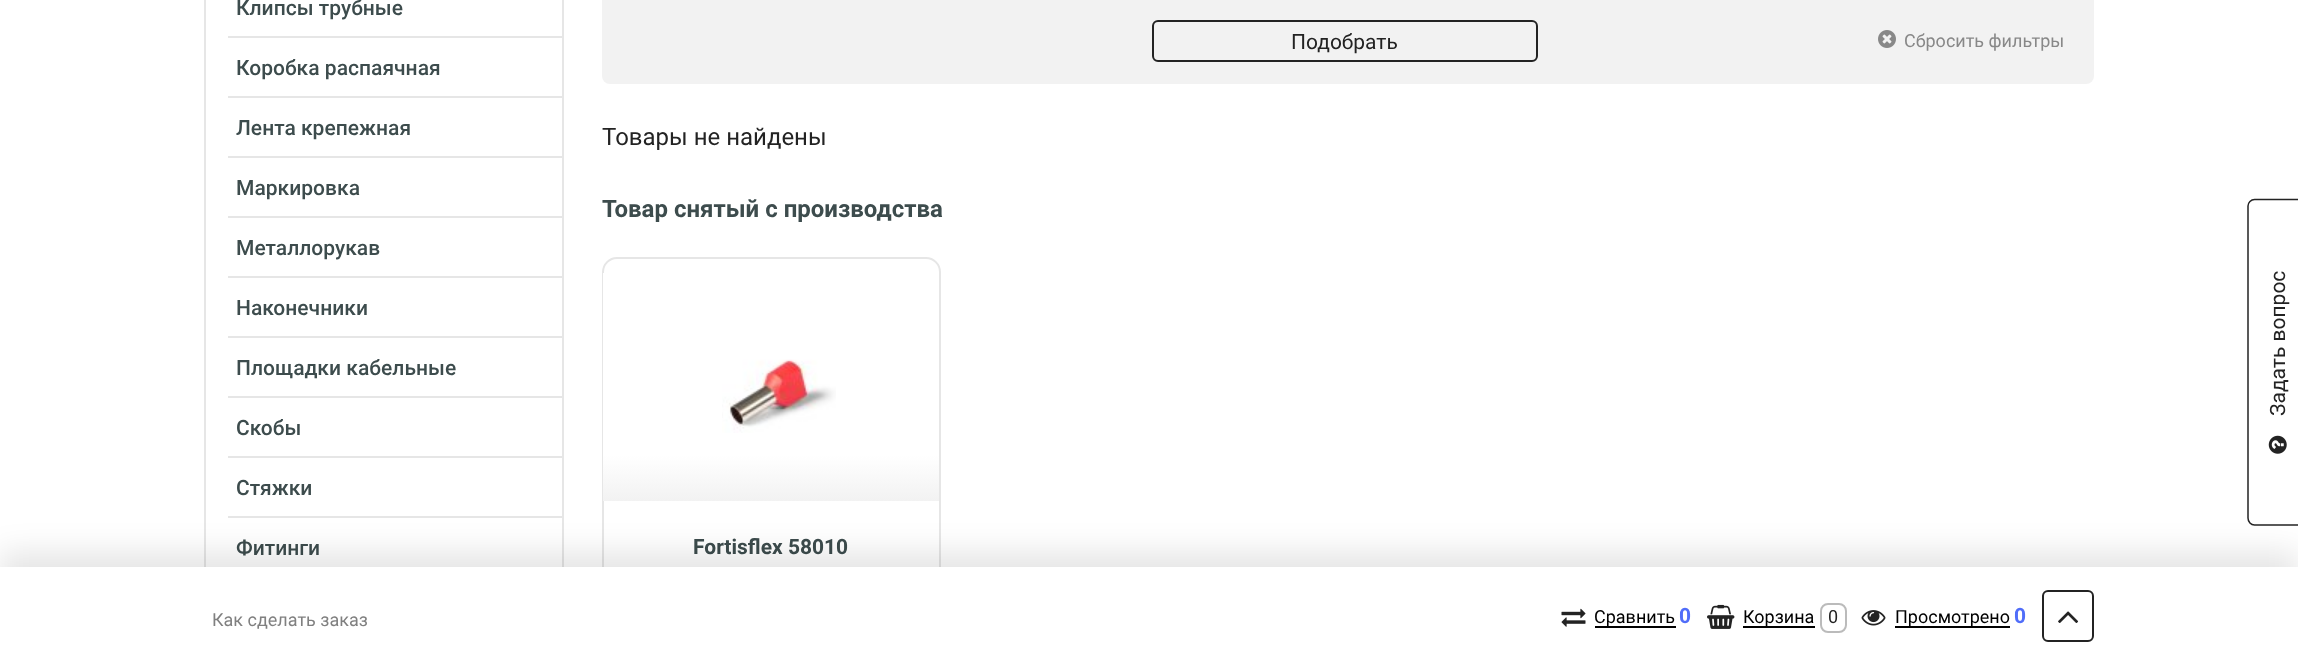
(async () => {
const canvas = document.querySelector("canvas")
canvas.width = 2298
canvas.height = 664
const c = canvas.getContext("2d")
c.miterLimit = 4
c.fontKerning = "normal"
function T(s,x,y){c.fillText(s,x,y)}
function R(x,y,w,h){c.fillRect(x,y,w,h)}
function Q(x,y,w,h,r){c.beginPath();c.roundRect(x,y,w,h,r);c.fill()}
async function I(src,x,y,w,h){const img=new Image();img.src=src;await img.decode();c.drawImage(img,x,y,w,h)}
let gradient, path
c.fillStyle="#fff"
R(0,0,2298,664)
c.strokeStyle="#e6e6e6"
c.lineWidth=2
c.strokeRect(205,-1,358,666)
c.fillStyle="#e6e6e6"
R(228,36,335,2)
c.font="500 21px Roboto"
c.fillStyle="#3d4c4d"
T("Клипсы трубные",236,15)
c.fillStyle="#e6e6e6"
R(228,96,335,2)
c.fillStyle="#3d4c4d"
T("Коробка распаячная",236,75)
c.fillStyle="#e6e6e6"
R(228,156,335,2)
c.fillStyle="#3d4c4d"
T("Лента крепежная",236,135)
c.fillStyle="#e6e6e6"
R(228,216,335,2)
c.fillStyle="#3d4c4d"
T("Маркировка",236,195)
c.fillStyle="#e6e6e6"
R(228,276,335,2)
c.fillStyle="#3d4c4d"
T("Металлорукав",236,255)
c.fillStyle="#e6e6e6"
R(228,336,335,2)
c.fillStyle="#3d4c4d"
T("Наконечники",236,315)
c.fillStyle="#e6e6e6"
R(228,396,335,2)
c.fillStyle="#3d4c4d"
T("Площадки кабельные",236,375)
c.fillStyle="#e6e6e6"
R(228,456,335,2)
c.fillStyle="#3d4c4d"
T("Скобы",236,435)
c.fillStyle="#e6e6e6"
R(228,516,335,2)
c.fillStyle="#3d4c4d"
T("Стяжки",236,495)
T("Фитинги",236,555)
c.fillStyle="#f2f2f2"
Q(602,-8,1492,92,8)
c.beginPath()
c.roundRect(1153,21,384,40,5)
c.strokeStyle="#232323"
c.stroke()
c.font="21px Roboto"
c.fillStyle="#232323"
T("Подобрать",1291,49)
await I("1.png",1878,30,18,18)
c.font="18px Roboto"
c.fillStyle="#888"
T("Сбросить фильтры",1904,47)
c.font="24px Roboto"
c.fillStyle="#232323"
T("Товары не найдены",602,145)
c.font="bold 24px Roboto"
c.fillStyle="#3d4c4d"
T("Товар снятый с производства",602,217)
c.beginPath()
c.roundRect(603,258,337,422,14)
c.strokeStyle="#e6e6e6"
c.stroke()
gradient = c.createLinearGradient(771,501,771,273)
gradient.addColorStop(0,"#f2f2f2")
gradient.addColorStop(.2,"#fff")
c.fillStyle = gradient
R(603,273,336,228)
await I("2.png",722,359,114,74)
c.font="bold 21px Roboto"
c.fillStyle="#3d4c4d"
T("Fortisflex 58010",693,554)
c.fillStyle="#0000001a"
c.filter="blur(15px)"
c.beginPath()
c.rect(0,552,2298,98)
c.fill()
c.filter="none"
path = new Path2D("M2248 518v-312c0-3.5 3-6.5 6.5-6.5h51.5v325.5h-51.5c-3.5 0-6.5-3-6.5-7z")
c.strokeStyle="#232323"
c.lineWidth=1.5
c.stroke(path)
c.font="21px Roboto"
c.fillStyle="#232323"
c.save()
c.translate(2285,416)
c.rotate(-90 * Math.PI / 180)
c.fillText("Задать вопрос",0,0)
c.restore()
await I("3.png",2268,435,19,19)
c.fillStyle="#fff"
R(0,567,2298,97)
c.font="18px Roboto"
c.fillStyle="#808080"
T("Как сделать заказ",212,626)
await I("4.png",1561,608,25,19)
c.fillStyle="#000"
R(1595,626,81,2)
T("Сравнить",1594,623)
c.font="bold 21px Roboto"
c.fillStyle="#506df9"
T("0",1679,623)
await I("5.png",1707,604,28,25)
c.fillStyle="#000"
R(1743,626,72,2)
c.font="18px Roboto"
T("Корзина",1743,623)
c.beginPath()
c.roundRect(1821,604,25,28,7)
c.strokeStyle="#bbb"
c.lineWidth=2
c.stroke()
c.fillStyle="#232323"
T("0",1828,623)
await I("6.png",1861,610,25,16)
c.fillStyle="#000"
R(1895,626,115,2)
T("Просмотрено",1895,623)
c.font="bold 21px Roboto"
c.fillStyle="#506df9"
T("0",2014,623)
c.beginPath()
c.roundRect(2043,591,50,50,5)
c.strokeStyle="#232323"
c.stroke()
await I("7.png",2058,611,21,12)
})()
